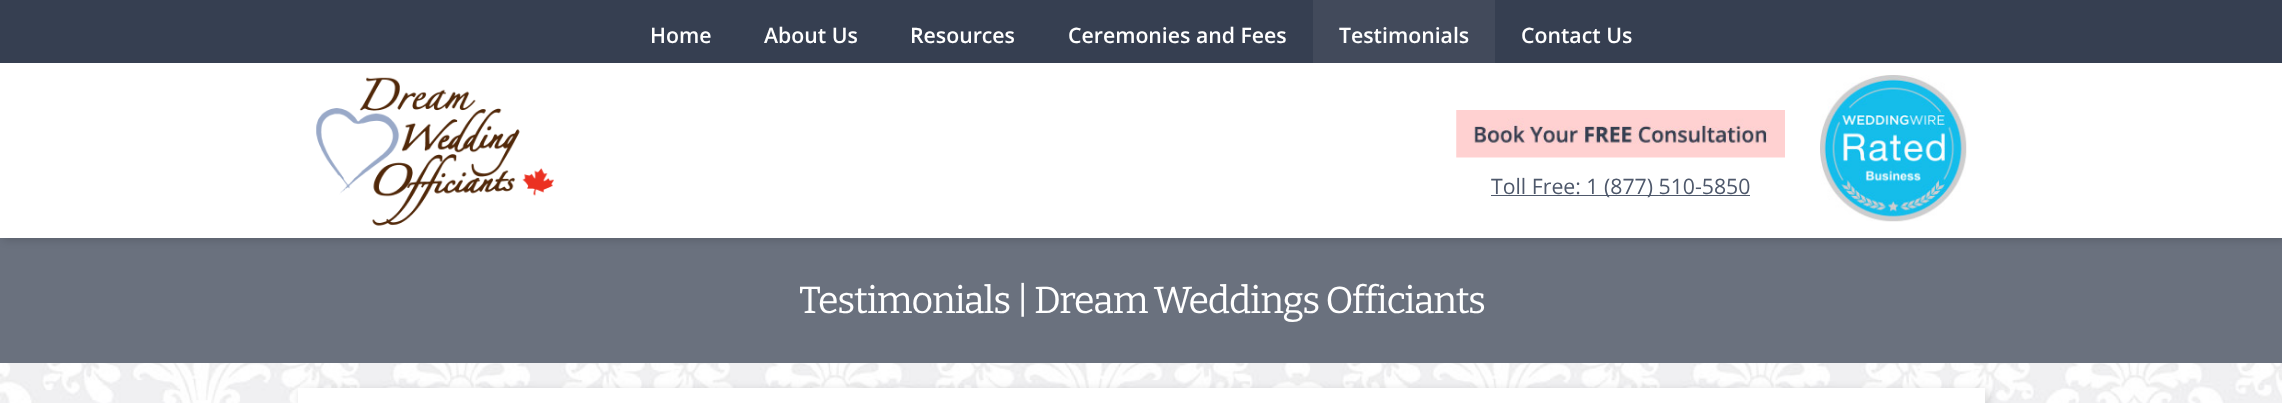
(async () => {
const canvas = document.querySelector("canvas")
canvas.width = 2282
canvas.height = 403
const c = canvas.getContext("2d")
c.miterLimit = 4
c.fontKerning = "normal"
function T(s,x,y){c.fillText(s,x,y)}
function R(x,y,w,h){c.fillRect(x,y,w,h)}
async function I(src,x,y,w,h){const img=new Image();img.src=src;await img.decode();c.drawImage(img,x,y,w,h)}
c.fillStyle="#fff"
R(0,0,2282,403)
await I("1.png",0,363,2282,40)
c.fillStyle="#6a717e"
R(0,238,2282,125)
c.fillStyle="#00000026"
c.filter="blur(4px)"
c.beginPath()
c.rect(3,65,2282,175)
c.fill()
c.filter="none"
c.fillStyle="#363f51"
R(0,0,2282,63)
c.font="600 21.25px Open Sans"
c.fillStyle="#fff"
T("Home",650,43)
T("About Us",764,43)
T("Resources",910,43)
T("Ceremonies and Fees",1068,43)
c.fillStyle="#424a5b"
R(1313,0,182,63)
c.fillStyle="#fff"
T("Testimonials",1339,43)
T("Contact Us",1521,43)
R(0,63,2282,175)
await I("2.png",316,77,238,149)
await I("3.png",1456,110,329,48)
c.fillStyle="#4e586b"
R(1491,195,259,1)
c.font="21.25px Open Sans"
T("Toll Free: 1 (877) 510-5850",1491,194)
await I("4.png",1820,75,147,147)
c.letterSpacing="-1.1px"
c.font="37.5px Bitter"
c.fillStyle="#fff"
T("Testimonials | Dream Weddings Officiants",799,313)
c.fillStyle="#00000026"
c.filter="blur(4px)"
c.beginPath()
c.rect(300,390,1688,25)
c.fill()
c.filter="none"
c.fillStyle="#fff"
R(298,388,1687,15)
})()
